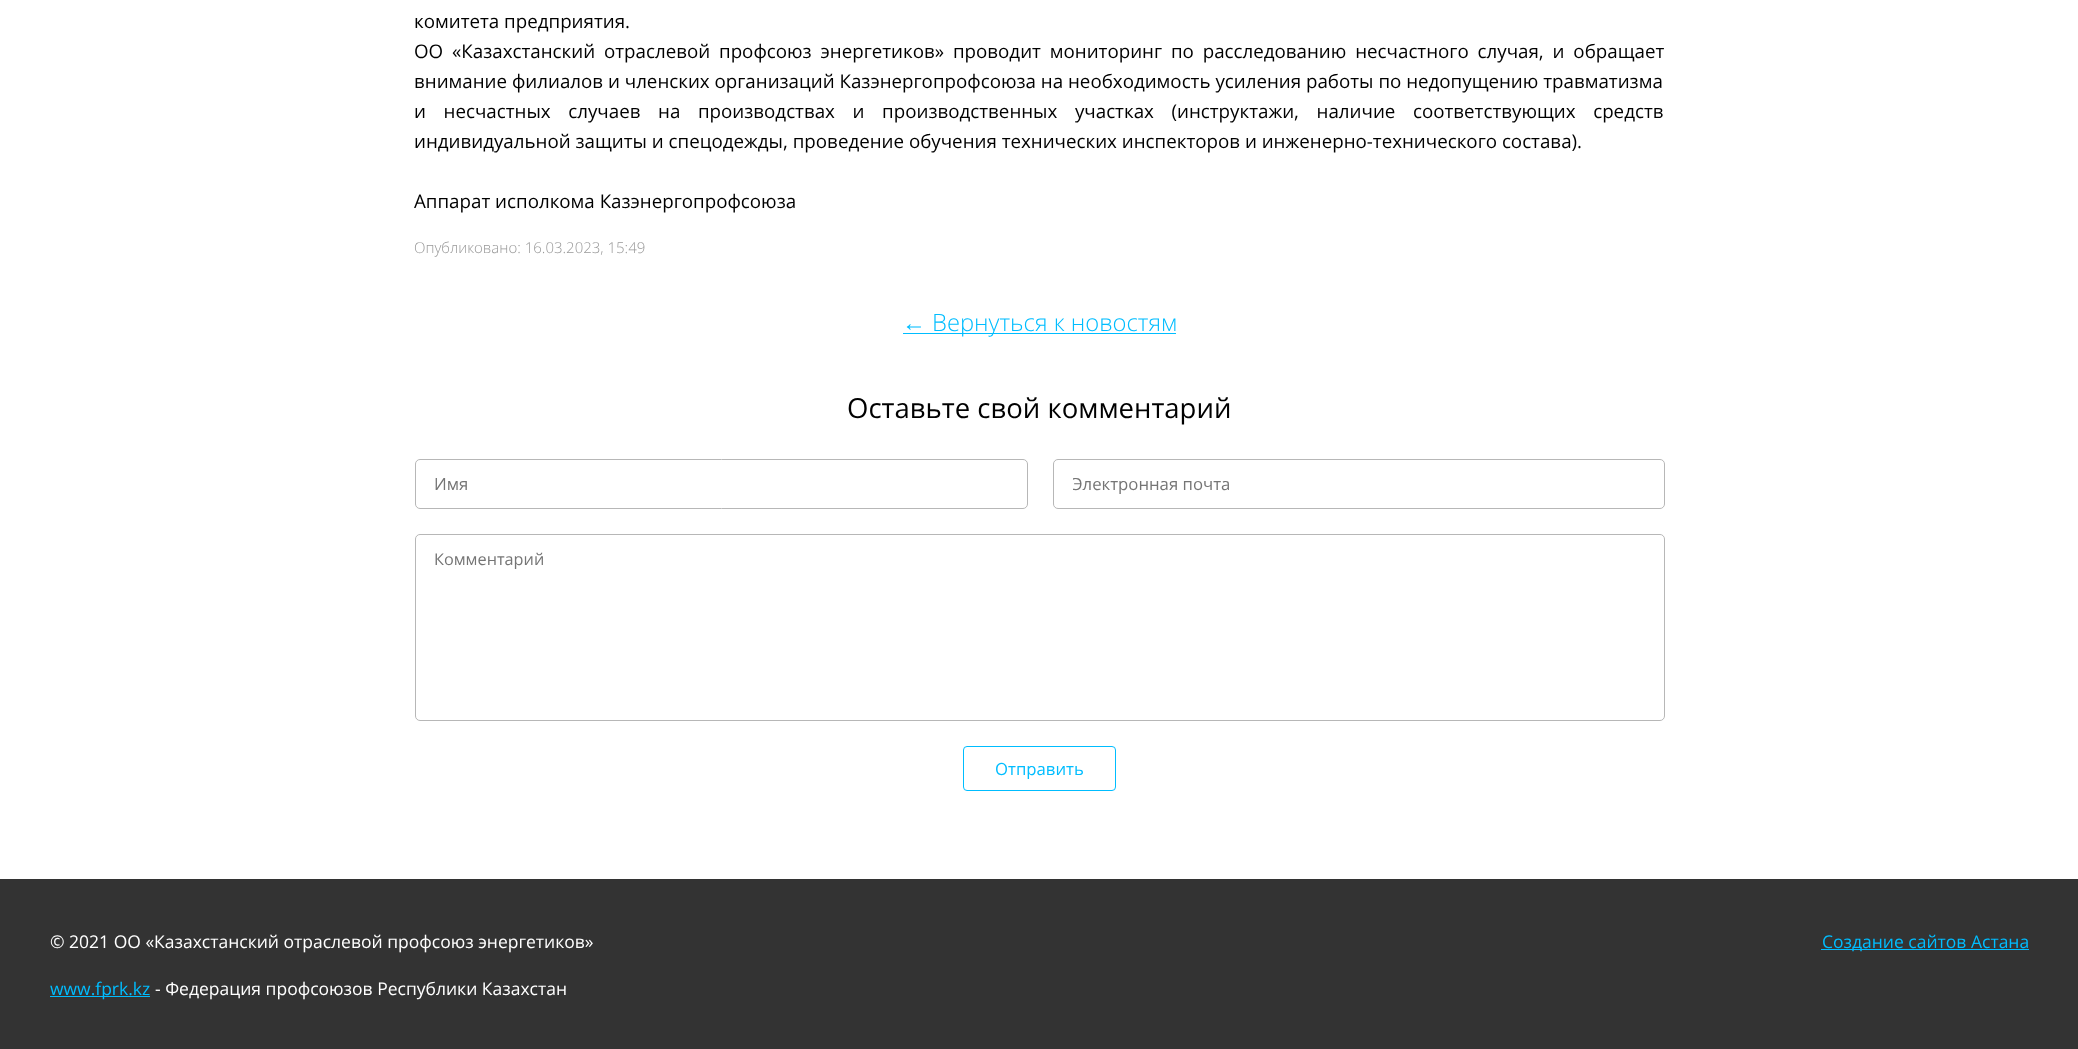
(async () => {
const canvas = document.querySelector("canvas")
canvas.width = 2078
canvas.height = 1049
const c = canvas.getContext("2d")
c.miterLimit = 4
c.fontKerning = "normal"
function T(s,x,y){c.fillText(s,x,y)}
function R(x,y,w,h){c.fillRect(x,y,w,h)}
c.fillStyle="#fff"
R(0,0,2078,1049)
c.font="18.75px Open Sans"
c.fillStyle="#000"
T("комитета предприятия.",414,28)
c.wordSpacing="4px"
T("ОО «Казахстанский отраслевой профсоюз энергетиков» проводит мониторинг по расследованию несчастного случая, и обращает",414,58)
c.wordSpacing="0px"
T("внимание филиалов и членских организаций Казэнергопрофсоюза на необходимость усиления работы по недопущению травматизма",414,88)
c.wordSpacing="12.75px"
T("и несчастных случаев на производствах и производственных участках (инструктажи, наличие соответствующих средств",414,118)
c.wordSpacing="0px"
T("индивидуальной защиты и спецодежды, проведение обучения технических инспекторов и инженерно-технического состава).",414,148)
T("Аппарат исполкома Казэнергопрофсоюза",414,208)
c.font="300 15px Open Sans"
c.fillStyle="#999"
T("Опубликовано: 16.03.2023, 15:49",414,253)
c.font="23.75px Liberation Sans"
c.fillStyle="#00bdff"
T("←",902,331)
R(903,333,273,1)
c.font="300 23.75px Open Sans"
T("Вернуться к новостям",932,331)
c.font="27.5px Open Sans"
c.fillStyle="#000"
T("Оставьте свой комментарий",847,418)
c.beginPath()
c.roundRect(415.5,459.5,612,49,4.5)
c.strokeStyle="#b7b7b7"
c.stroke()
c.font="16.75px Open Sans"
c.fillStyle="#757575"
T("Имя",434,490)
c.beginPath()
c.roundRect(1053.5,459.5,611,49,4.5)
c.stroke()
c.save()
c.beginPath()
c.rect(1073,473,572,22)
c.clip()
T("Электронная почта",1072,490)
c.restore()
c.beginPath()
c.roundRect(415.5,534.5,1249,186,4.5)
c.stroke()
c.font="16.25px Open Sans"
T("Комментарий",434,565)
c.beginPath()
c.roundRect(963.5,746.5,152,44,3.5)
c.strokeStyle="#00bdff"
c.stroke()
c.font="16.75px Open Sans"
c.fillStyle="#00bdff"
T("Отправить",995,775)
c.fillStyle="#333"
R(0,879,2078,170)
c.font="17.5px Open Sans"
c.fillStyle="#fff"
T("© 2021 ОО «Казахстанский отраслевой профсоюз энергетиков»",50,948)
c.fillStyle="#00bdff"
R(50,996,100,1)
T("www.fprk.kz",50,995)
c.fillStyle="#fff"
T("- Федерация профсоюзов Республики Казахстан",155,995)
c.fillStyle="#00bdff"
R(1821,949,208,1)
T("Создание сайтов Астана",1822,948)
})()
